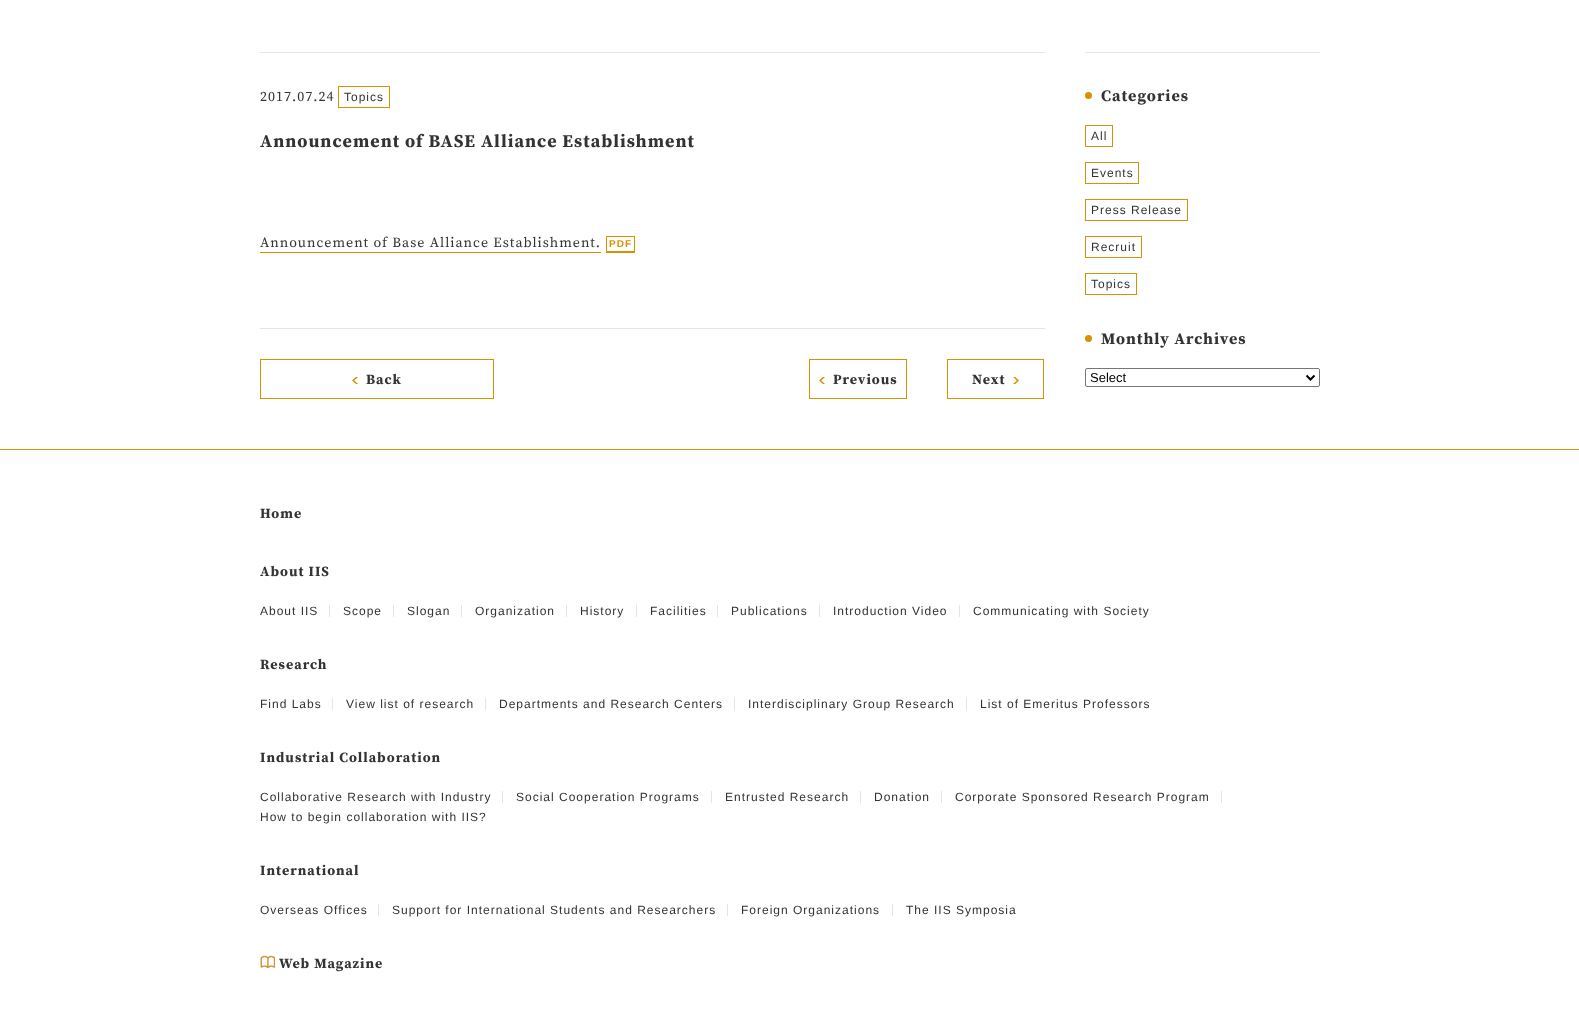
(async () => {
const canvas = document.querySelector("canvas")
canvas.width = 1579
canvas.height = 1015
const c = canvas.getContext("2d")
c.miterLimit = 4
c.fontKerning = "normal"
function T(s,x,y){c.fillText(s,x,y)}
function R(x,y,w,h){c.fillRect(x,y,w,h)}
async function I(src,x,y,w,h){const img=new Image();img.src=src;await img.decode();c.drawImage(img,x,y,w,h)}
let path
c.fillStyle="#fff"
R(0,0,1579,1015)
c.fillStyle="#e5e5e5"
R(260,52,785,1)
c.letterSpacing="1px"
c.font="14px Source Serif Pro"
c.fillStyle="#333"
T("2017.07.24",260,101)
c.strokeStyle="#da9100"
c.strokeRect(338.5,86.5,51,21)
c.font="12px Liberation Sans"
T("Topics",344,101)
c.font="bold 18px Source Serif Pro"
T("Announcement of BASE Alliance Establishment",260,147)
c.fillStyle="#da9100"
R(260,252,341,1)
R(606,252,29,1)
c.font="14px Source Serif Pro"
c.fillStyle="#333"
T("Announcement of Base Alliance Establishment.",260,247)
c.strokeRect(606.5,236.5,28,15)
c.font="bold 10px Liberation Sans"
c.fillStyle="#da9100"
T("PDF",609,247)
c.fillStyle="#e5e5e5"
R(260,328,785,1)
c.strokeRect(260.5,359.5,233,39)
await I("1.png",352,377,6,7)
c.font="bold 14px Source Serif Pro"
c.fillStyle="#333"
T("Back",366,384)
c.strokeRect(809.5,359.5,97,39)
await I("1.png",819,377,6,7)
T("Previous",833,384)
c.strokeRect(947.5,359.5,96,39)
T("Next",972,384)
await I("2.png",1013,377,6,7)
c.fillStyle="#e5e5e5"
R(1085,52,235,1)
c.fillStyle="#da9100"
c.beginPath()
c.arc(1088.5,95.5,3.5,0,7)
c.fill()
c.font="bold 16px Source Serif Pro"
c.fillStyle="#333"
T("Categories",1101,101)
c.strokeRect(1085.5,125.5,27,21)
c.font="12px Liberation Sans"
T("All",1091,140)
c.strokeRect(1085.5,162.5,53,21)
T("Events",1091,177)
c.strokeRect(1085.5,199.5,102,21)
T("Press Release",1091,214)
c.strokeRect(1085.5,236.5,56,21)
T("Recruit",1091,251)
c.strokeRect(1085.5,273.5,51,21)
T("Topics",1091,288)
c.fillStyle="#da9100"
c.beginPath()
c.arc(1088.5,338.5,3.5,0,7)
c.fill()
c.font="bold 16px Source Serif Pro"
c.fillStyle="#333"
T("Monthly Archives",1101,344)
c.beginPath()
c.roundRect(1085.5,368.5,234,18,1.5)
c.strokeStyle="#767676"
c.stroke()
path = new Path2D("M1306.5 375.5l4 4l4-4")
c.strokeStyle="#000"
c.lineWidth=2
c.stroke(path)
c.letterSpacing="0px"
c.font="13px Liberation Sans"
c.fillStyle="#000"
T("Select",1090,382)
c.fillStyle="#da9100"
R(0,449,1579,1)
c.letterSpacing="1px"
c.font="bold 14px Source Serif Pro"
c.fillStyle="#333"
T("Home",260,518)
T("About IIS",260,576)
c.font="12px Liberation Sans"
T("About IIS",260,615)
c.fillStyle="#e5e5e5"
R(329,605,1,12)
c.fillStyle="#333"
T("Scope",343,615)
c.fillStyle="#e5e5e5"
R(393,605,1,12)
c.fillStyle="#333"
T("Slogan",407,615)
c.fillStyle="#e5e5e5"
R(461,605,1,12)
c.fillStyle="#333"
T("Organization",475,615)
c.fillStyle="#e5e5e5"
R(566,605,1,12)
c.fillStyle="#333"
T("History",580,615)
c.fillStyle="#e5e5e5"
R(636,605,1,12)
c.fillStyle="#333"
T("Facilities",650,615)
c.fillStyle="#e5e5e5"
R(717,605,1,12)
c.fillStyle="#333"
T("Publications",731,615)
c.fillStyle="#e5e5e5"
R(819,605,1,12)
c.fillStyle="#333"
T("Introduction Video",833,615)
c.fillStyle="#e5e5e5"
R(959,605,1,12)
c.fillStyle="#333"
T("Communicating with Society",973,615)
c.font="bold 14px Source Serif Pro"
T("Research",260,669)
c.font="12px Liberation Sans"
T("Find Labs",260,708)
c.fillStyle="#e5e5e5"
R(332,698,1,12)
c.fillStyle="#333"
T("View list of research",346,708)
c.fillStyle="#e5e5e5"
R(485,698,1,12)
c.fillStyle="#333"
T("Departments and Research Centers",499,708)
c.fillStyle="#e5e5e5"
R(734,698,1,12)
c.fillStyle="#333"
T("Interdisciplinary Group Research",748,708)
c.fillStyle="#e5e5e5"
R(966,698,1,12)
c.fillStyle="#333"
T("List of Emeritus Professors",980,708)
c.font="bold 14px Source Serif Pro"
T("Industrial Collaboration",260,762)
c.font="12px Liberation Sans"
T("Collaborative Research with Industry",260,801)
c.fillStyle="#e5e5e5"
R(502,791,1,12)
c.fillStyle="#333"
T("Social Cooperation Programs",516,801)
c.fillStyle="#e5e5e5"
R(711,791,1,12)
c.fillStyle="#333"
T("Entrusted Research",725,801)
c.fillStyle="#e5e5e5"
R(860,791,1,12)
c.fillStyle="#333"
T("Donation",874,801)
c.fillStyle="#e5e5e5"
R(941,791,1,12)
c.fillStyle="#333"
T("Corporate Sponsored Research Program",955,801)
c.fillStyle="#e5e5e5"
R(1221,791,1,12)
c.fillStyle="#333"
T("How to begin collaboration with IIS?",260,821)
c.font="bold 14px Source Serif Pro"
T("International",260,875)
c.font="12px Liberation Sans"
T("Overseas Offices",260,914)
c.fillStyle="#e5e5e5"
R(378,904,1,12)
c.fillStyle="#333"
T("Support for International Students and Researchers",392,914)
c.fillStyle="#e5e5e5"
R(727,904,1,12)
c.fillStyle="#333"
T("Foreign Organizations",741,914)
c.fillStyle="#e5e5e5"
R(892,904,1,12)
c.fillStyle="#333"
T("The IIS Symposia",906,914)
await I("3.png",260,955,15,14)
c.font="bold 14px Source Serif Pro"
T("Web Magazine",279,968)
})()
